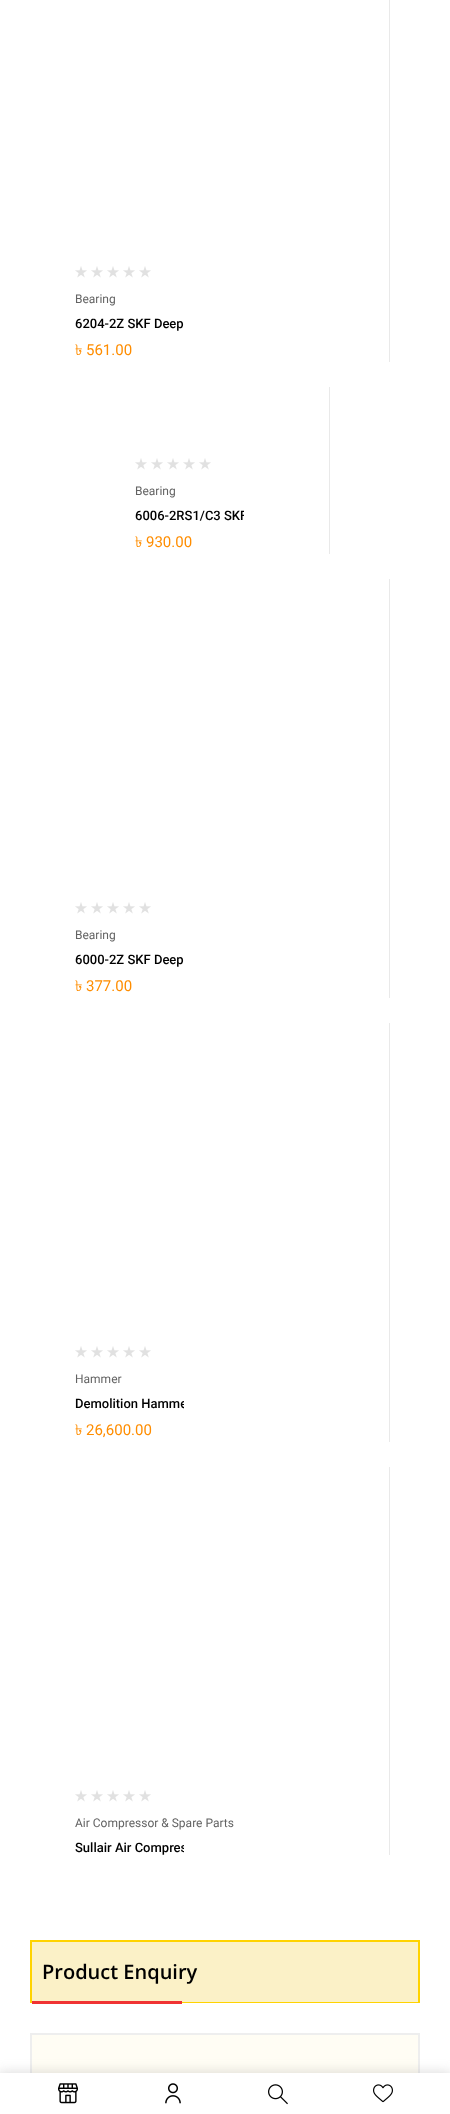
(async () => {
const canvas = document.querySelector("canvas")
canvas.width = 450
canvas.height = 2114
const c = canvas.getContext("2d")
c.miterLimit = 4
c.fontKerning = "normal"
function T(s,x,y){c.fillText(s,x,y)}
function R(x,y,w,h){c.fillRect(x,y,w,h)}
async function I(src,x,y,w,h){const img=new Image();img.src=src;await img.decode();c.drawImage(img,x,y,w,h)}
c.fillStyle="#fff"
R(0,0,450,2114)
await I("1.png",75,266,76,12)
c.font="12px Roboto"
c.fillStyle="#636363"
T("Bearing",75,303)
c.font="500 13px Roboto"
c.fillStyle="#000"
T("6204-2Z SKF Deep",75,328)
c.font="15px Lohit Bengali"
c.fillStyle="#ff8d00"
T("৳",75,355)
c.font="15px Roboto"
T("561.00",86,355)
c.fillStyle="#e9e9e9"
R(389,0,1,362)
await I("1.png",135,458,76,12)
c.font="12px Roboto"
c.fillStyle="#636363"
T("Bearing",135,495)
c.save()
c.beginPath()
c.rect(135,508,109,15)
c.clip()
c.font="500 13px Roboto"
c.fillStyle="#000"
T("6006-2RS1/C3 SKF",135,520)
c.restore()
c.font="15px Lohit Bengali"
c.fillStyle="#ff8d00"
T("৳",135,547)
c.font="15px Roboto"
T("930.00",146,547)
c.fillStyle="#e9e9e9"
R(329,387,1,167)
await I("1.png",75,902,76,12)
c.font="12px Roboto"
c.fillStyle="#636363"
T("Bearing",75,939)
c.font="500 13px Roboto"
c.fillStyle="#000"
T("6000-2Z SKF Deep",75,964)
c.font="15px Lohit Bengali"
c.fillStyle="#ff8d00"
T("৳",75,991)
c.font="15px Roboto"
T("377.00",86,991)
c.fillStyle="#e9e9e9"
R(389,579,1,419)
await I("1.png",75,1346,76,12)
c.font="12px Roboto"
c.fillStyle="#636363"
T("Hammer",75,1383)
c.save()
c.beginPath()
c.rect(75,1396,109,15)
c.clip()
c.font="500 13px Roboto"
c.fillStyle="#000"
T("Demolition Hamme",75,1408)
c.restore()
c.font="15px Lohit Bengali"
c.fillStyle="#ff8d00"
T("৳",75,1435)
c.font="15px Roboto"
T("26,600.00",86,1435)
c.fillStyle="#e9e9e9"
R(389,1023,1,419)
await I("1.png",75,1790,76,12)
c.font="12px Roboto"
c.fillStyle="#636363"
T("Air Compressor & Spare Parts",75,1827)
c.save()
c.beginPath()
c.rect(75,1840,109,15)
c.clip()
c.font="500 13px Roboto"
c.fillStyle="#000"
T("Sullair Air Compres",75,1852)
c.restore()
c.fillStyle="#e9e9e9"
R(389,1467,1,388)
c.fillStyle="#fbf1c7"
R(32,1942,386,60)
c.fillStyle="#ffd300"
R(30,1940,390,2)
R(418,1940,2,63)
R(182,2002,238,1)
R(30,1940,2,63)
c.font="600 20px Open Sans"
c.fillStyle="#000"
T("Product Enquiry",42,1979)
c.fillStyle="#f03333"
R(32,2001,150,3)
c.fillStyle="#fffdf4"
R(32,2035,386,38)
c.strokeStyle="#eee"
c.lineWidth=2
c.strokeRect(31,2034,388,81)
c.fillStyle="#8f8f8f4d"
c.filter="blur(6px)"
c.beginPath()
c.rect(-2,2072,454,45)
c.fill()
c.filter="none"
c.fillStyle="#fff"
R(0,2073,450,41)
await I("2.png",58,2083,20,21)
await I("3.png",165,2083,16,21)
await I("4.png",268,2084,20,21)
await I("5.png",373,2084,20,19)
})()
